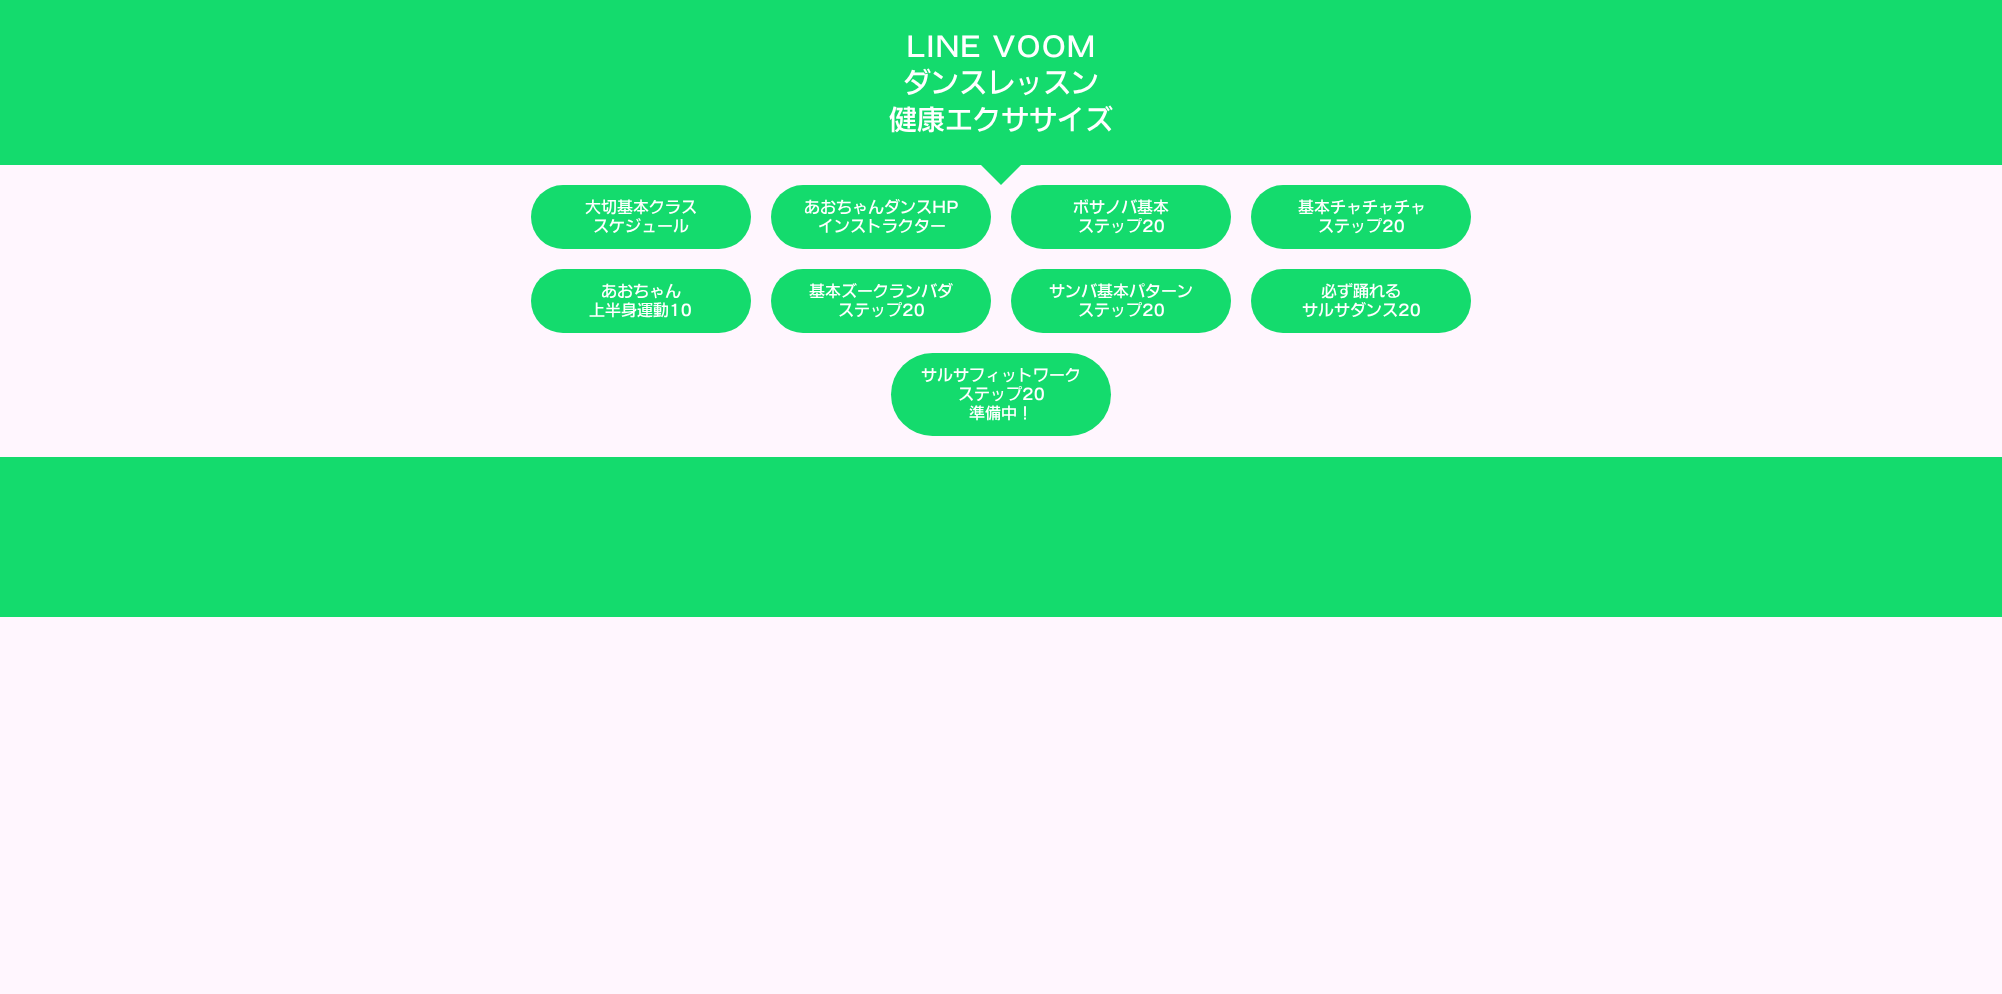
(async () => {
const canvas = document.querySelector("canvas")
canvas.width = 2002
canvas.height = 994
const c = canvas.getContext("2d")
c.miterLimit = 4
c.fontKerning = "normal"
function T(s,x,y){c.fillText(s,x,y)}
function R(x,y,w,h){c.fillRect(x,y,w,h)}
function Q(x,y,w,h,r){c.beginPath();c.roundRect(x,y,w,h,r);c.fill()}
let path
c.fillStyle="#fff6fe"
R(0,0,2002,994)
c.fillStyle="#14db6d"
R(0,0,2002,165)
c.font="500 28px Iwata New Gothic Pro"
c.fillStyle="#fff"
T("LINE VOOM",906,57)
T("ダンスレッスン",903,93)
T("健康エクササイズ",889,130)
c.fillStyle="#14db6d"
path = new Path2D("M971 155h60l-30 30z")
c.fill(path)
Q(531,185,220,64,32)
c.font="500 16px Iwata New Gothic Pro"
c.fillStyle="#fff"
T("大切基本クラス",585,213)
T("スケジュール",593,232)
c.fillStyle="#14db6d"
Q(771,185,220,64,32)
c.fillStyle="#fff"
T("あおちゃんダンスHP",804,213)
T("インストラクター",818,232)
c.fillStyle="#14db6d"
Q(1011,185,220,64,32)
c.fillStyle="#fff"
T("ボサノバ基本",1073,213)
T("ステップ20",1078,232)
c.fillStyle="#14db6d"
Q(1251,185,220,64,32)
c.fillStyle="#fff"
T("基本チャチャチャ",1298,213)
T("ステップ20",1318,232)
c.fillStyle="#14db6d"
Q(531,269,220,64,32)
c.fillStyle="#fff"
T("あおちゃん",601,297)
T("上半身運動10",589,316)
c.fillStyle="#14db6d"
Q(771,269,220,64,32)
c.fillStyle="#fff"
T("基本ズークランバダ",809,297)
T("ステップ20",838,316)
c.fillStyle="#14db6d"
Q(1011,269,220,64,32)
c.fillStyle="#fff"
T("サンバ基本パターン",1049,297)
T("ステップ20",1078,316)
c.fillStyle="#14db6d"
Q(1251,269,220,64,32)
c.fillStyle="#fff"
T("必ず踊れる",1321,297)
T("サルサダンス20",1302,316)
c.fillStyle="#14db6d"
Q(891,353,220,83,41.5)
c.fillStyle="#fff"
T("サルサフィットワーク",921,381)
T("ステップ20",958,400)
T("準備中！",969,419)
c.fillStyle="#14db6d"
R(0,457,2002,160)
})()
